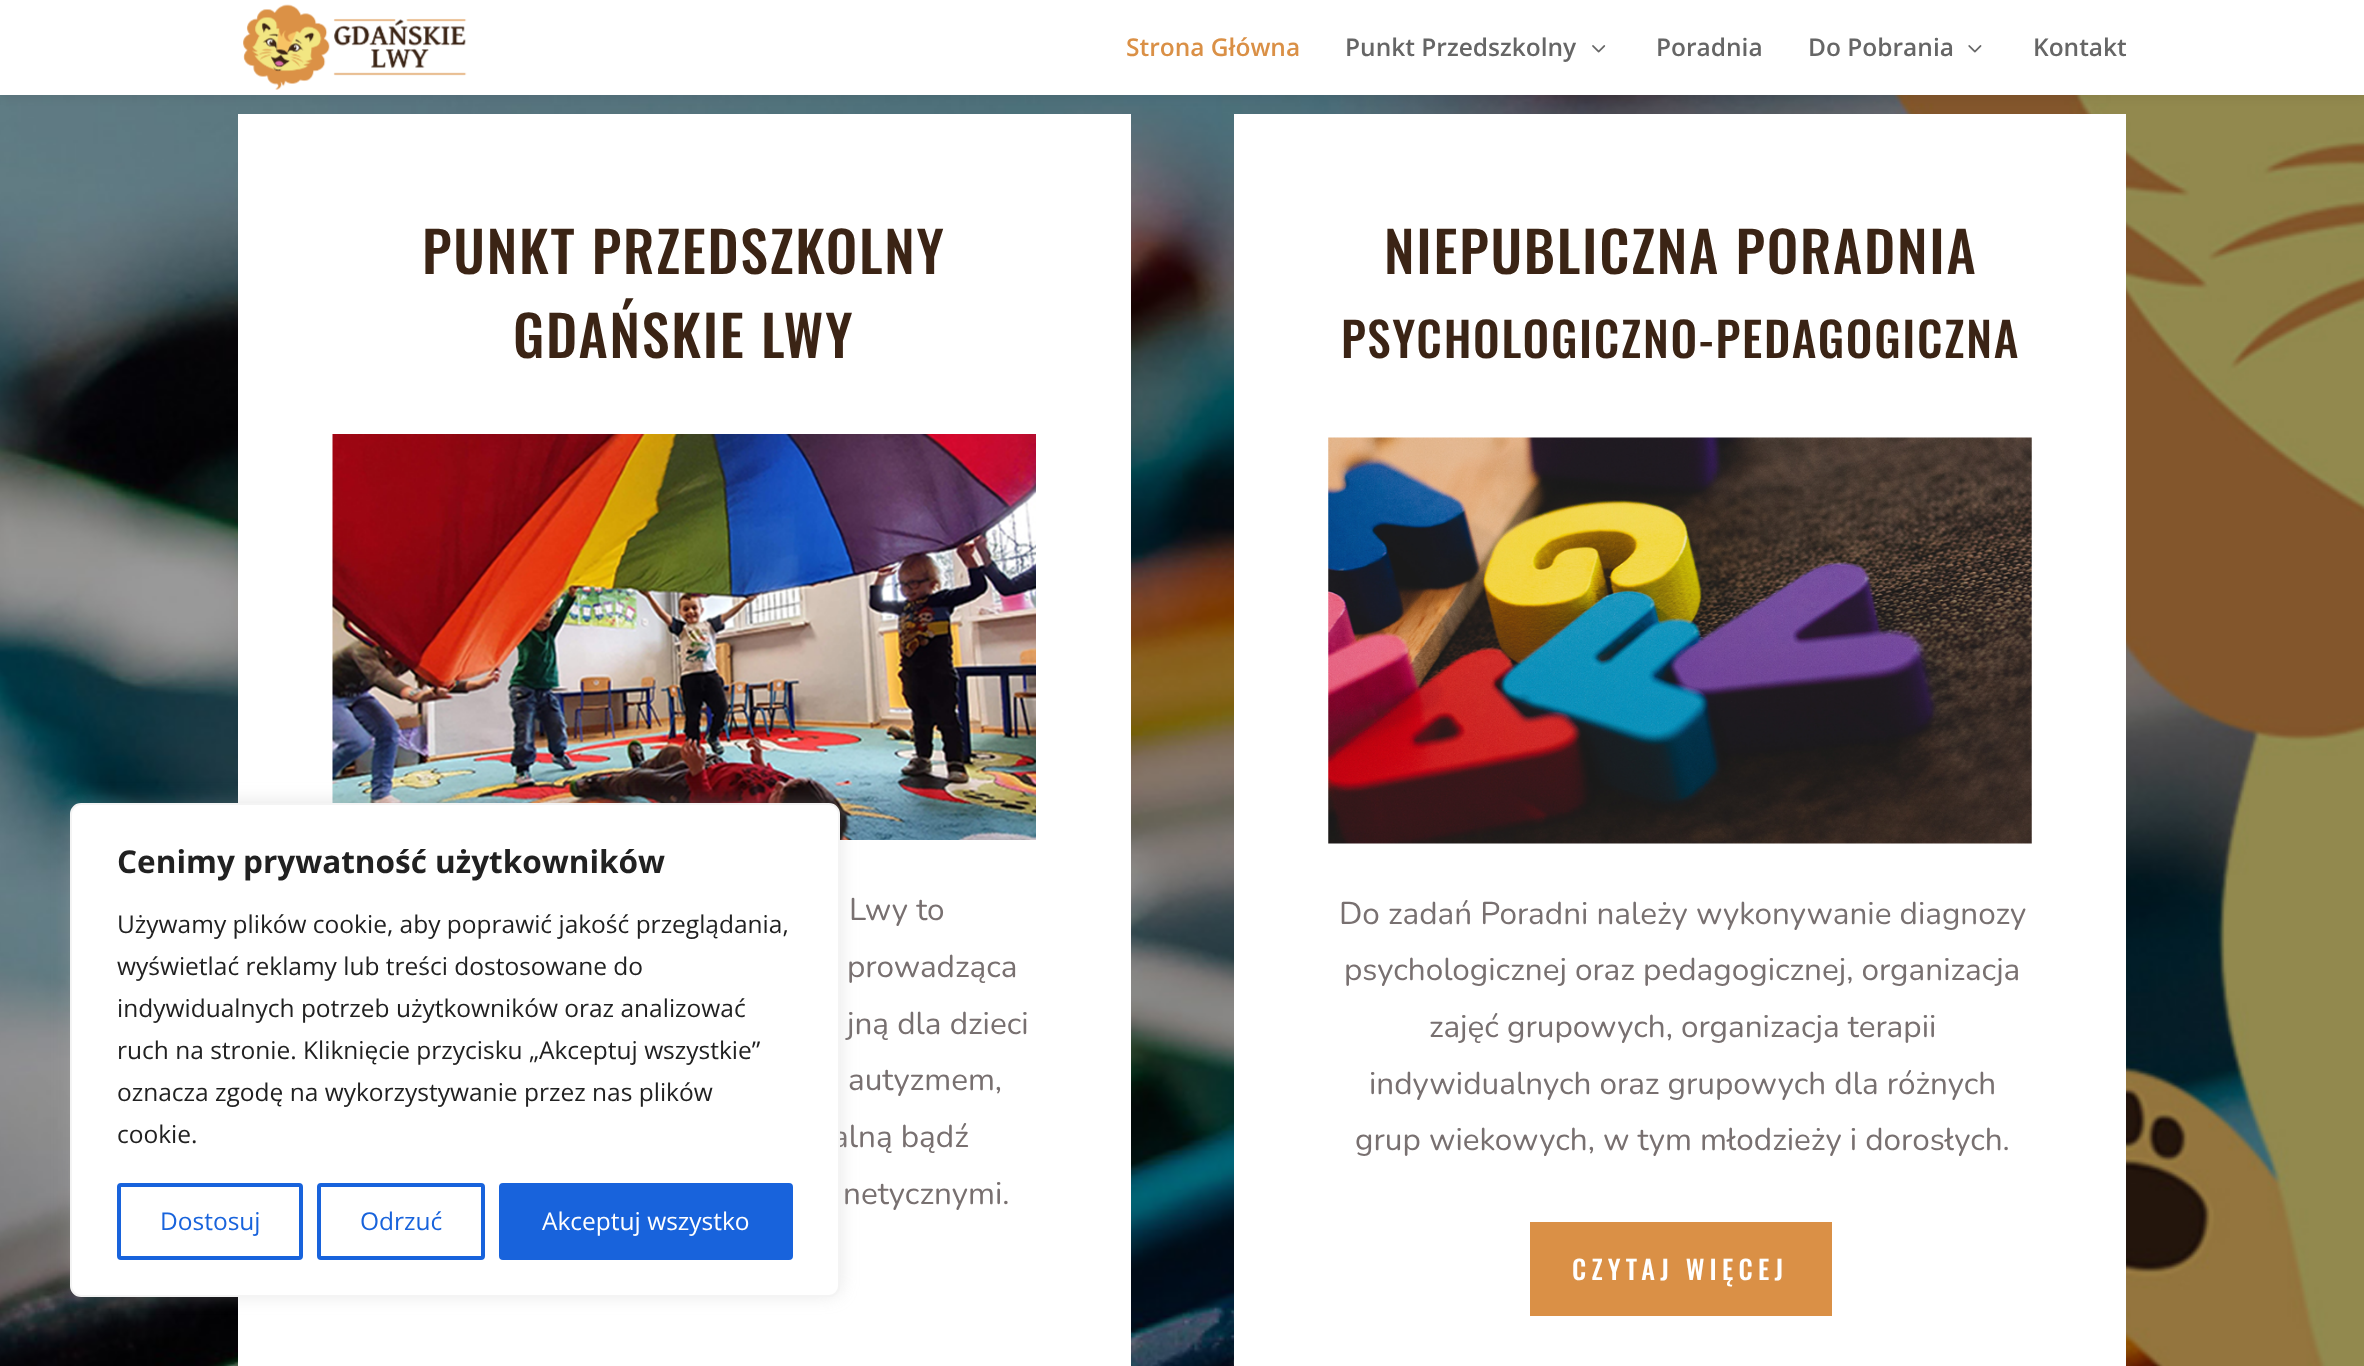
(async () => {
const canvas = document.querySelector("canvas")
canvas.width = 2364
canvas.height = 1366
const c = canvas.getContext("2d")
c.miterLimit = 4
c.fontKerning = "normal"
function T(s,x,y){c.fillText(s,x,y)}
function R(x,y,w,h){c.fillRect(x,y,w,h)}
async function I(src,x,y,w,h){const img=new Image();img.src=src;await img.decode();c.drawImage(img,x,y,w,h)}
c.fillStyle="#fff"
R(0,0,2364,1366)
await I("4.png",0,95,2364,1271)
c.fillStyle="#0000001a"
c.filter="blur(6px)"
c.beginPath()
c.rect(0,0,2364,95)
c.fill()
c.filter="none"
c.fillStyle="#fff"
R(0,0,2364,95)
await I("1.png",243,4,224,86)
c.font="600 24.5px Open Sans"
c.fillStyle="#da9046"
T("Strona Główna",1126,56)
c.fillStyle="#666"
T("Punkt Przedszkolny",1345,56)
await I("2.png",1592,45,14,8)
T("Poradnia",1656,56)
T("Do Pobrania",1808,56)
await I("3.png",1968,45,14,8)
T("Kontakt",2033,56)
c.fillStyle="#fff"
R(238,114,893,1252)
c.letterSpacing="1.75px"
c.font="500 56px Oswald"
c.fillStyle="#3b2415"
T("PUNKT PRZEDSZKOLNY",422,274)
T("GDAŃSKIE LWY",513,358)
await I("5.png",332,434,704,406)
c.letterSpacing="0px"
c.font="31.5px Nunito"
c.fillStyle="#787070"
T("Lwy to",849,920)
T("prowadząca",847,977)
T("jną dla dzieci",847,1034)
T("autyzmem,",848,1090)
T("alną bądź",832,1147)
T("netycznymi.",843,1204)
c.fillStyle="#fff"
R(1234,114,892,1252)
c.letterSpacing="1.75px"
c.font="500 56px Oswald"
c.fillStyle="#3b2415"
T("NIEPUBLICZNA PORADNIA",1384,274)
c.font="500 47.25px Oswald"
T("PSYCHOLOGICZNO-PEDAGOGICZNA",1341,358)
await I("6.png",1328,437,704,407)
c.letterSpacing="0px"
c.font="31.5px Nunito"
c.fillStyle="#787070"
T("Do zadań Poradni należy wykonywanie diagnozy",1339,924)
T("psychologicznej oraz pedagogicznej, organizacja",1344,980)
T("zajęć grupowych, organizacja terapii",1429,1037)
T("indywidualnych oraz grupowych dla różnych",1369,1094)
T("grup wiekowych, w tym młodzieży i dorosłych.",1355,1150)
c.fillStyle="#da9046"
R(1530,1222,302,94)
c.letterSpacing="5.25px"
c.font="500 26.25px Oswald"
c.fillStyle="#fff"
T("CZYTAJ WIĘCEJ",1572,1280)
c.fillStyle="#acabab4d"
c.filter="blur(9px)"
c.beginPath()
c.roundRect(70,802,770,493,11)
c.fill()
c.filter="none"
c.fillStyle="#fff"
c.beginPath()
c.roundRect(71,804,768,492,10)
c.fill()
c.strokeStyle="#f4f4f4"
c.lineWidth=2
c.stroke()
c.letterSpacing="0px"
c.font="bold 31.5px Open Sans"
c.fillStyle="#212121"
T("Cenimy prywatność użytkowników",117,873)
c.font="24.5px Open Sans"
T("Używamy plików cookie, aby poprawić jakość przeglądania,",117,933)
T("wyświetlać reklamy lub treści dostosowane do",117,975)
T("indywidualnych potrzeb użytkowników oraz analizować",117,1017)
T("ruch na stronie. Kliknięcie przycisku „Akceptuj wszystkie”",117,1059)
T("oznacza zgodę na wykorzystywanie przez nas plików",117,1101)
T("cookie.",117,1143)
c.beginPath()
c.roundRect(119,1185,182,73,2)
c.strokeStyle="#1863dc"
c.lineWidth=4
c.stroke()
c.fillStyle="#1863dc"
T("Dostosuj",160,1230)
c.beginPath()
c.roundRect(319,1185,164,73,2)
c.stroke()
T("Odrzuć",360,1230)
c.beginPath()
c.roundRect(501,1185,290,73,2)
c.fill()
c.stroke()
c.fillStyle="#fff"
T("Akceptuj wszystko",542,1230)
})()
